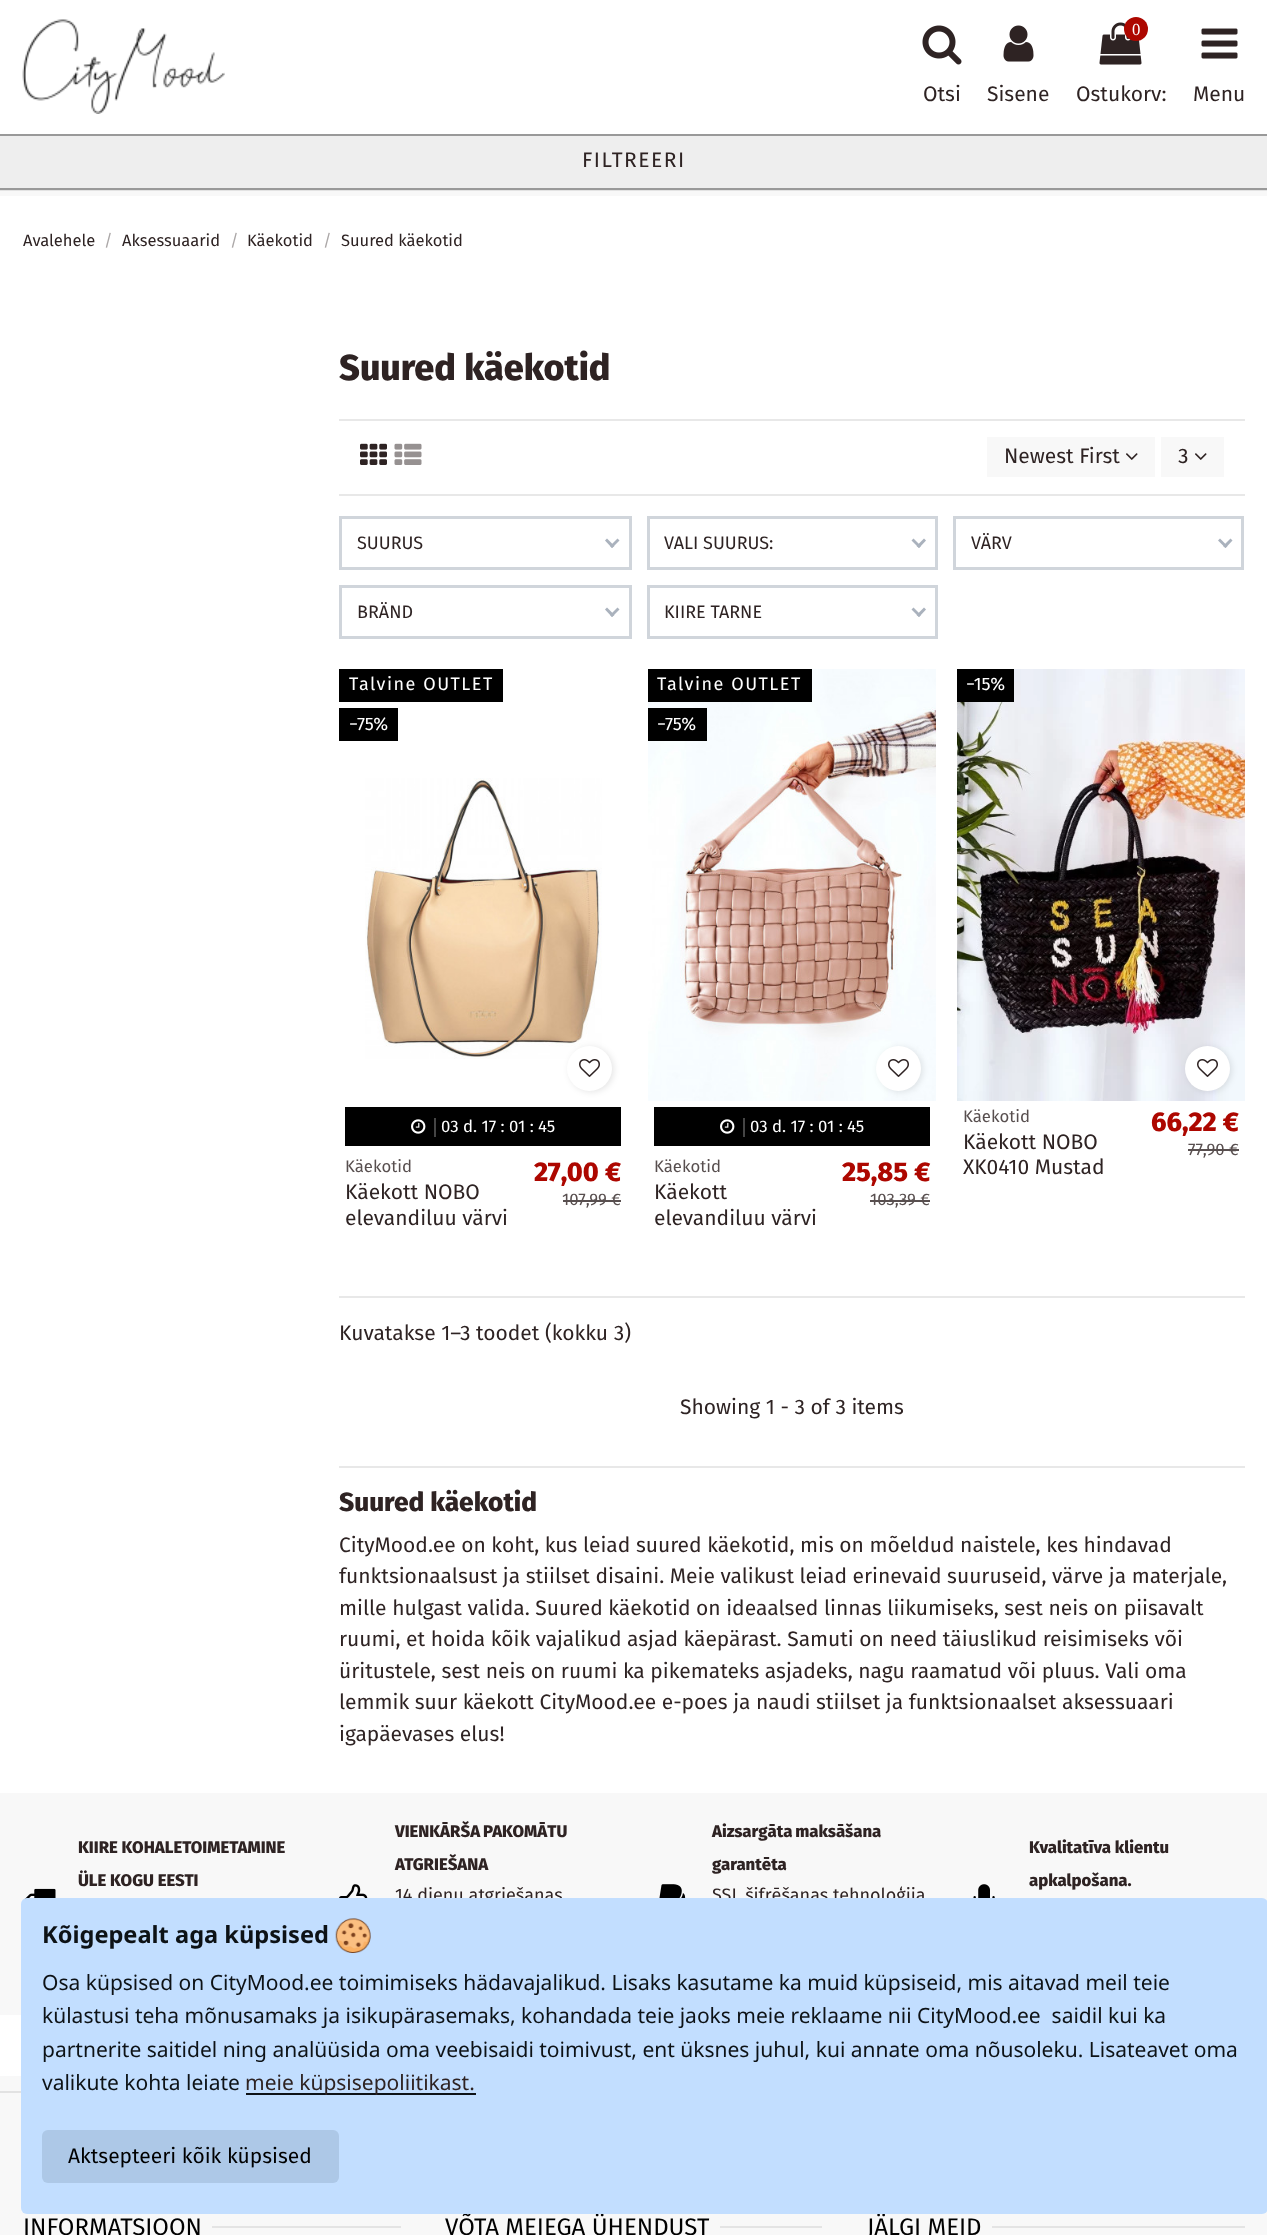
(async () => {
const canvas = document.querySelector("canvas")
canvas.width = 1267
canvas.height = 2235
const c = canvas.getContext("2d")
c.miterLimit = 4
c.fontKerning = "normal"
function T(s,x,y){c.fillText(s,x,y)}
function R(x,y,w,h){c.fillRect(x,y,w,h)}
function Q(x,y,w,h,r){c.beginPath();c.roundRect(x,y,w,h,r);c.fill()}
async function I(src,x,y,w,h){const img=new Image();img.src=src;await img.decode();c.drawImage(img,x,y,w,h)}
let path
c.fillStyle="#fff"
R(0,0,1267,2235)
c.fillStyle="#f8f8f8"
R(0,191,1267,5)
c.fillStyle="#e3e3e3"
R(0,190,1267,1)
await I("1.png",22,19,203,95)
await I("2.png",922,25,40,40)
c.font="21px Fira Sans"
c.fillStyle="#2e2323"
T("Otsi",923,101)
await I("3.png",1003,25,31,37)
T("Sisene",987,101)
await I("4.png",1099,22,43,43)
c.fillStyle="#ad0700"
c.beginPath()
c.arc(1136,29,12,0,7)
c.fill()
c.font="16.75px Liberation Serif"
c.fillStyle="#fff"
T("0",1132,35)
c.font="21px Fira Sans"
c.fillStyle="#2e2323"
T("Ostukorv:",1076,101)
await I("5.png",1201,28,37,31)
T("Menu",1193,101)
c.fillStyle="#eee"
R(0,136,1267,52)
c.fillStyle="#999"
R(0,134,1267,2)
R(0,188,1267,2)
c.letterSpacing="1.5px"
c.fillStyle="#2e2323"
T("FILTREERI",582,167)
c.letterSpacing="0px"
c.font="16.5px Fira Sans"
T("Avalehele",23,246)
c.fillStyle="#aba7a7"
T("/",104,246)
c.fillStyle="#2e2323"
T("Aksessuaarid",122,246)
c.fillStyle="#aba7a7"
T("/",230,246)
c.fillStyle="#2e2323"
T("Käekotid",247,246)
c.fillStyle="#aba7a7"
T("/",323,246)
c.fillStyle="#2e2323"
T("Suured käekotid",341,246)
c.font="800 36px Fira Sans"
T("Suured käekotid",339,380)
c.fillStyle="#e8e8e8"
R(339,419,906,2)
R(339,494,906,2)
await I("6.png",360,443,27,22)
await I("7.png",394,443,28,22)
c.fillStyle="#f8f8f8"
R(987,437,168,40)
c.font="21px Fira Sans"
c.fillStyle="#2e2323"
T("Newest First",1004,463)
await I("8.png",1126,453,12,7)
c.fillStyle="#f8f8f8"
R(1161,437,63,40)
c.fillStyle="#2e2323"
T("3",1178,463)
await I("8.png",1195,453,12,7)
c.strokeStyle="#d0d5db"
c.lineWidth=3
c.strokeRect(340.5,517.5,290,51)
c.font="18px Fira Sans"
T("SUURUS",357,549)
c.fillStyle="#aab2bd"
path = new Path2D("M617.5 538.5l2 2l-7.5 7.5l-2-2z")
c.fill(path)
path = new Path2D("M607 538.5l7.5 7.5l-2.5 2l-7-7.5z")
c.fill(path)
c.strokeRect(648.5,517.5,288,51)
c.fillStyle="#2e2323"
T("VALI SUURUS:",664,549)
c.fillStyle="#aab2bd"
path = new Path2D("M924 538.5l2 2l-7 7.5l-2.5-2z")
c.fill(path)
path = new Path2D("M913.5 538.5l7.5 7.5l-2 2l-7.5-7.5z")
c.fill(path)
c.strokeRect(954.5,517.5,288,51)
c.fillStyle="#2e2323"
T("VÄRV",971,549)
c.fillStyle="#aab2bd"
path = new Path2D("M1230.5 538.5l2 2l-7 7.5l-2.5-2z")
c.fill(path)
path = new Path2D("M1220 538.5l7.5 7.5l-2 2l-7.5-7.5z")
c.fill(path)
c.strokeRect(340.5,586.5,290,51)
c.fillStyle="#2e2323"
T("BRÄND",357,618)
c.fillStyle="#aab2bd"
path = new Path2D("M617.5 607.5l2 2l-7.5 7.5l-2-2z")
c.fill(path)
path = new Path2D("M607 607.5l7.5 7.5l-2.5 2l-7-7.5z")
c.fill(path)
c.strokeRect(648.5,586.5,288,51)
c.fillStyle="#2e2323"
T("KIIRE TARNE",664,618)
c.fillStyle="#aab2bd"
path = new Path2D("M924 607.5l2 2l-7 7.5l-2.5-2z")
c.fill(path)
path = new Path2D("M913.5 607.5l7.5 7.5l-2 2l-7.5-7.5z")
c.fill(path)
c.fillStyle="#000"
R(339,669,164,33)
c.letterSpacing="1.5px"
c.fillStyle="#fff"
T("Talvine OUTLET",349,690)
c.fillStyle="#000"
R(339,708,59,33)
c.letterSpacing="0px"
c.fillStyle="#fff"
T("−75%",349,730)
await I("9.png",365,778,237,281)
c.fillStyle="#0000001a"
c.filter="blur(3px)"
c.beginPath()
c.roundRect(569,1047,45,45,22.5)
c.fill()
c.filter="none"
c.fillStyle="#fff"
c.beginPath()
c.arc(589.5,1068.5,22.5,0,7)
c.fill()
await I("10.png",579,1059,21,18)
c.fillStyle="#000"
R(345,1107,276,39)
c.fillStyle="#454545"
R(434,1118,2,19)
await I("11.png",411,1119,15,15)
c.font="16.75px Fira Sans"
c.fillStyle="#fff"
T("03 d. 17 : 01 : 45",441,1132)
c.fillStyle="#584f4f"
T("Käekotid",345,1172)
c.font="21px Fira Sans"
c.fillStyle="#2e2323"
T("Käekott NOBO",345,1199)
T("elevandiluu värvi",345,1225)
c.font="800 27px Fira Sans"
c.fillStyle="#ad0700"
T("27,00 €",534,1181)
c.font="16.75px Fira Sans"
c.fillStyle="#584f4f"
T("107,99 €",562,1205)
R(563,1200,58,2)
await I("12.png",648,669,288,432)
c.fillStyle="#000"
R(648,669,164,33)
c.letterSpacing="1.5px"
c.font="18px Fira Sans"
c.fillStyle="#fff"
T("Talvine OUTLET",657,690)
c.fillStyle="#000"
R(648,708,59,33)
c.letterSpacing="0px"
c.fillStyle="#fff"
T("−75%",657,730)
c.fillStyle="#0000001a"
c.filter="blur(3px)"
c.beginPath()
c.roundRect(878,1047,45,45,22.5)
c.fill()
c.filter="none"
c.fillStyle="#fff"
c.beginPath()
c.arc(898.5,1068.5,22.5,0,7)
c.fill()
await I("10.png",888,1059,21,18)
c.fillStyle="#000"
R(654,1107,276,39)
c.fillStyle="#454545"
R(743,1118,2,19)
await I("11.png",720,1119,15,15)
c.font="16.75px Fira Sans"
c.fillStyle="#fff"
T("03 d. 17 : 01 : 45",750,1132)
c.fillStyle="#584f4f"
T("Käekotid",654,1172)
c.font="21px Fira Sans"
c.fillStyle="#2e2323"
T("Käekott",654,1199)
T("elevandiluu värvi",654,1225)
c.font="800 27px Fira Sans"
c.fillStyle="#ad0700"
T("25,85 €",842,1181)
c.font="16.75px Fira Sans"
c.fillStyle="#584f4f"
T("103,39 €",870,1205)
R(870,1200,60,2)
await I("13.png",957,669,288,432)
c.fillStyle="#000"
R(957,669,57,33)
c.font="18px Fira Sans"
c.fillStyle="#fff"
T("−15%",966,690)
c.fillStyle="#0000001a"
c.filter="blur(3px)"
c.beginPath()
c.roundRect(1187,1047,45,45,22.5)
c.fill()
c.filter="none"
c.fillStyle="#fff"
c.beginPath()
c.arc(1207.5,1068.5,22.5,0,7)
c.fill()
await I("10.png",1197,1059,21,18)
c.font="16.75px Fira Sans"
c.fillStyle="#584f4f"
T("Käekotid",963,1122)
c.font="21px Fira Sans"
c.fillStyle="#2e2323"
T("Käekott NOBO",963,1149)
T("XK0410 Mustad",963,1174)
c.font="800 27px Fira Sans"
c.fillStyle="#ad0700"
T("66,22 €",1151,1131)
c.font="16.75px Fira Sans"
c.fillStyle="#584f4f"
T("77,90 €",1188,1155)
R(1188,1149,51,2)
c.fillStyle="#e8e8e8"
R(339,1296,906,2)
c.font="21px Fira Sans"
c.fillStyle="#2e2323"
T("Kuvatakse 1–3 toodet (kokku 3)",339,1340)
T("Showing 1 - 3 of 3 items",680,1414)
c.fillStyle="#e8e8e8"
R(339,1466,906,2)
c.font="800 26.25px Fira Sans"
c.fillStyle="#2e2323"
T("Suured käekotid",339,1511)
c.font="21px Fira Sans"
T("CityMood.ee on koht, kus leiad suured käekotid, mis on mõeldud naistele, kes hindavad",339,1552)
T("funktsionaalsust ja stiilset disaini. Meie valikust leiad erinevaid suuruseid, värve ja materjale,",339,1583)
T("mille hulgast valida. Suured käekotid on ideaalsed linnas liikumiseks, sest neis on piisavalt",339,1615)
T("ruumi, et hoida kõik vajalikud asjad käepärast. Samuti on need täiuslikud reisimiseks või",339,1646)
T("üritustele, sest neis on ruumi ka pikemateks asjadeks, nagu raamatud või pluus. Vali oma",339,1678)
T("lemmik suur käekott CityMood.ee e-poes ja naudi stiilset ja funktsionaalset aksessuaari",339,1709)
T("igapäevases elus!",339,1741)
c.fillStyle="#f8f8f8"
R(0,1793,1267,222)
c.font="800 16.75px Fira Sans"
c.fillStyle="#2e2323"
T("KIIRE KOHALETOIMETAMINE",78,1853)
T("ÜLE KOGU EESTI",78,1886)
await I("14.png",25,1888,31,11)
await I("15.png",339,1884,29,14)
c.wordSpacing="-1px"
T("VIENKĀRŠA PAKOMĀTU",395,1837)
c.wordSpacing="0px"
T("ATGRIEŠANA",395,1870)
c.font="18px Fira Sans"
T("14 dienu atgriešanas",395,1901)
await I("16.png",659,1884,27,14)
c.wordSpacing="-1px"
c.font="800 16.75px Fira Sans"
T("Aizsargāta maksāšana",712,1837)
c.wordSpacing="0px"
T("garantēta",712,1870)
c.font="18px Fira Sans"
T("SSL šifrēšanas tehnoloģija",712,1901)
await I("17.png",973,1884,22,14)
c.font="800 16.75px Fira Sans"
T("Kvalitatīva klientu",1029,1853)
T("apkalpošana.",1029,1886)
c.fillStyle="#f8f8f8"
R(0,2076,1267,159)
c.fillStyle="#e2e2e2"
R(0,2091,21,2)
c.font="24px Fira Sans"
c.fillStyle="#000"
T("INFORMATSIOON",23,2235)
c.fillStyle="#e4e4e4"
R(212,2226,189,2)
c.fillStyle="#000"
T("VÕTA MEIEGA ÜHENDUST",445,2235)
c.fillStyle="#e4e4e4"
R(720,2226,102,2)
c.fillStyle="#000"
T("JÄLGI MEID",867,2235)
c.fillStyle="#e4e4e4"
R(992,2226,253,2)
c.fillStyle="#c2deff"
Q(21,1898,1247,316,6)
c.font="bold 23.6px Noto Sans"
c.fillStyle="#0d1216"
T("Kõigepealt aga küpsised",42,1943)
await I("18.png",335,1918,36,35)
c.font="21px Noto Sans"
T("Osa küpsised on CityMood.ee toimimiseks hädavajalikud. Lisaks kasutame ka muid küpsiseid, mis aitavad meil teie",42,1990)
T("külastusi teha mõnusamaks ja isikupärasemaks, kohandada teie jaoks meie reklaame nii CityMood.ee  saidil kui ka",42,2023)
T("partnerite saitidel ning analüüsida oma veebisaidi toimivust, ent üksnes juhul, kui annate oma nõusoleku. Lisateavet oma",42,2057)
T("valikute kohta leiate",42,2090)
R(246,2093,230,2)
c.fillStyle="#2e2323"
T("meie küpsisepoliitikast.",245,2090)
c.fillStyle="#adc8e7"
Q(42,2130,297,53,6)
c.font="21px Fira Sans"
c.fillStyle="#000"
T("Aktsepteeri kõik küpsised",68,2163)
})()
